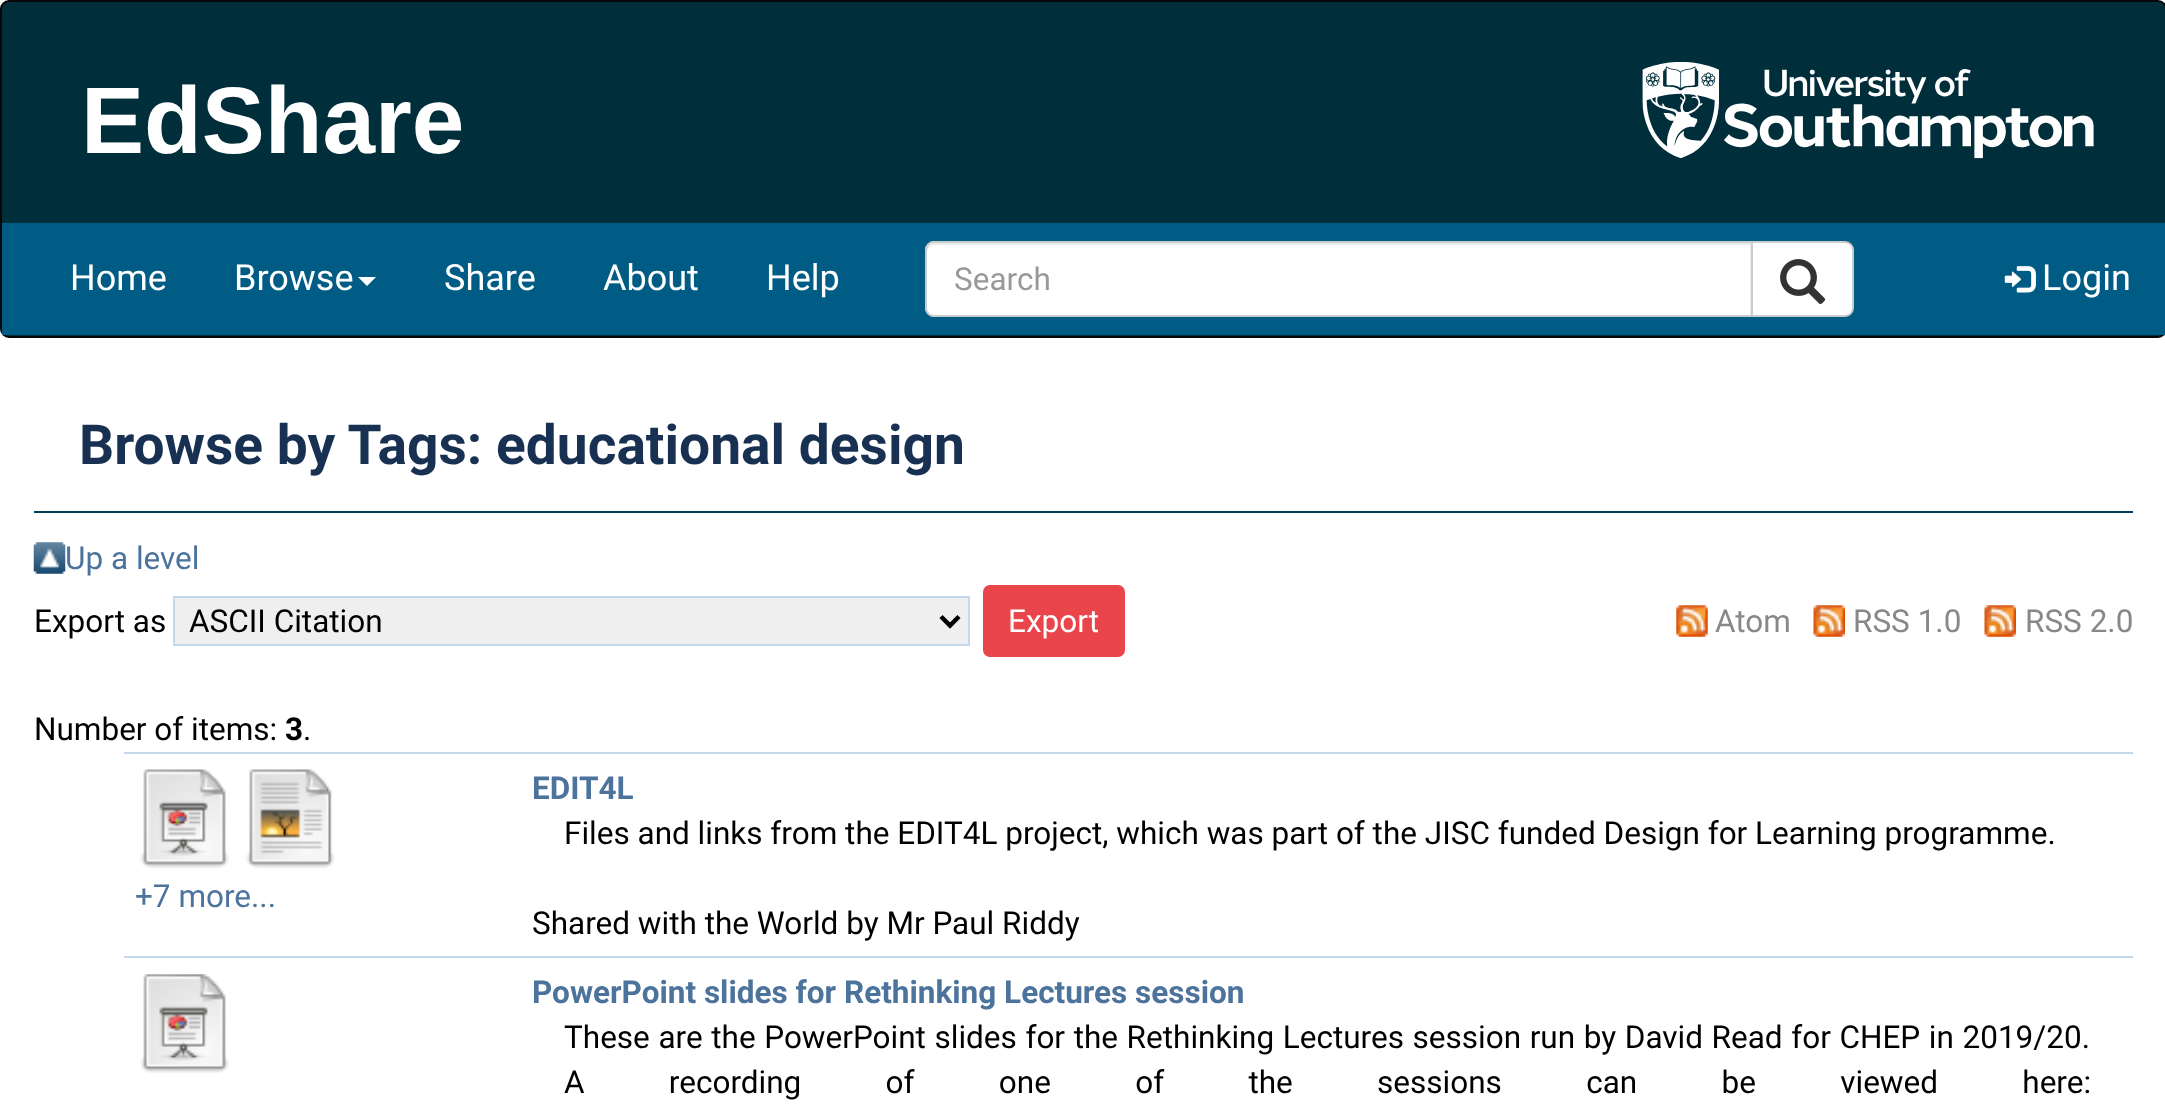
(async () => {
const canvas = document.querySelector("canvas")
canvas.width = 2165
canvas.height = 1117
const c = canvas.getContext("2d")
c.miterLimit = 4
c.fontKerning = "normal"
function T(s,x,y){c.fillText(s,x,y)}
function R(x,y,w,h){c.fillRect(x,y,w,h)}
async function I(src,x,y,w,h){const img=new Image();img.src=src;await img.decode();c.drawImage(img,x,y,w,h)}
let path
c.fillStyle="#fff"
R(0,0,2165,1117)
c.fillStyle="#002e3b"
c.beginPath()
c.roundRect(1,1,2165,336,8)
c.fill()
c.strokeStyle="#080808"
c.lineWidth=2
c.stroke()
await I("1.png",1642,62,452,97)
c.font="bold 94.5px Liberation Sans"
c.fillStyle="#fff"
T("EdShare",81,153)
c.fillStyle="#005c85"
R(2,223,2163,112)
c.font="36px Roboto"
c.fillStyle="#fff"
T("Home",70,290)
T("Browse",234,290)
path = new Path2D("M358 277h18l-9 9z")
c.fill(path)
T("Share",444,290)
T("About",603,290)
T("Help",766,290)
c.beginPath()
c.roundRect(925,241,828,76,[9,0,0,9])
c.fill()
c.fillStyle="#ececec"
path = new Path2D("M934 245h816v70h1v-72h-817c-4 0-7 3-7 7v2c0-4 3-7 7-7z")
c.fill(path)
c.beginPath()
c.roundRect(926,242,826,74,[8,0,0,8])
c.strokeStyle="#ccc"
c.stroke()
c.font="31.5px Roboto"
c.fillStyle="#999"
T("Search",954,290)
c.fillStyle="#fff"
c.beginPath()
c.roundRect(1752,242,101,74,[0,8,8,0])
c.fill()
c.stroke()
await I("2.png",1780,259,46,45)
await I("3.png",2004,266,32,27)
c.font="36px Roboto"
T("Login",2042,290)
c.fillStyle="#004255"
R(34,511,2099,2)
c.font="bold 55.1px Roboto"
c.fillStyle="#183152"
T("Browse by Tags: educational design",79,464)
await I("4.png",33,542,33,32)
c.font="31.5px Roboto"
c.fillStyle="#4c739c"
T("Up a level",65,569)
c.fillStyle="#000"
T("Export as",34,632)
c.fillStyle="#efefef"
c.beginPath()
c.rect(174,597,795,48)
c.fill()
c.strokeStyle="#c4d7ed"
c.stroke()
path = new Path2D("M941 616.5l9 9l9-9")
c.strokeStyle="#000"
c.lineWidth=4.5
c.stroke(path)
c.fillStyle="#000"
T("ASCII Citation",189,632)
c.fillStyle="#e9454b"
c.beginPath()
c.roundRect(984,586,140,70,6)
c.fill()
c.strokeStyle="#e9454b"
c.lineWidth=2
c.stroke()
c.fillStyle="#fff"
T("Export",1008,632)
await I("5.png",1676,605,32,32)
c.fillStyle="#888"
T("Atom",1715,632)
await I("6.png",1813,605,32,32)
T("RSS 1.0",1853,632)
await I("7.png",1984,605,32,32)
T("RSS 2.0",2025,632)
c.fillStyle="#000"
T("Number of items:",34,740)
c.font="bold 31.5px Roboto"
T("3",285,740)
c.font="31.5px Roboto"
T(".",303,740)
c.fillStyle="#c4d7ed"
R(124,752,2009,2)
await I("8.png",140,769,89,100)
await I("9.png",245,769,90,100)
c.font="bold 31.5px Roboto"
c.fillStyle="#4c739c"
T("EDIT4L",532,799)
c.font="31.5px Roboto"
c.fillStyle="#000"
T("Files and links from the EDIT4L project, which was part of the JISC funded Design for Learning programme.",564,844)
T("Shared with the World by Mr Paul Riddy",532,934)
c.fillStyle="#4c739c"
T("+7 more...",135,907)
c.fillStyle="#c4d7ed"
R(124,956,2009,2)
await I("10.png",140,974,89,99)
c.font="bold 31.5px Roboto"
c.fillStyle="#4c739c"
T("PowerPoint slides for Rethinking Lectures session",532,1003)
c.wordSpacing="0.8px"
c.font="31.5px Roboto"
c.fillStyle="#000"
T("These are the PowerPoint slides for the Rethinking Lectures session run by David Read for CHEP in 2019/20.",564,1048)
c.wordSpacing="76.5px"
T("A recording of one of the sessions can be viewed here:",564,1093)
})()
